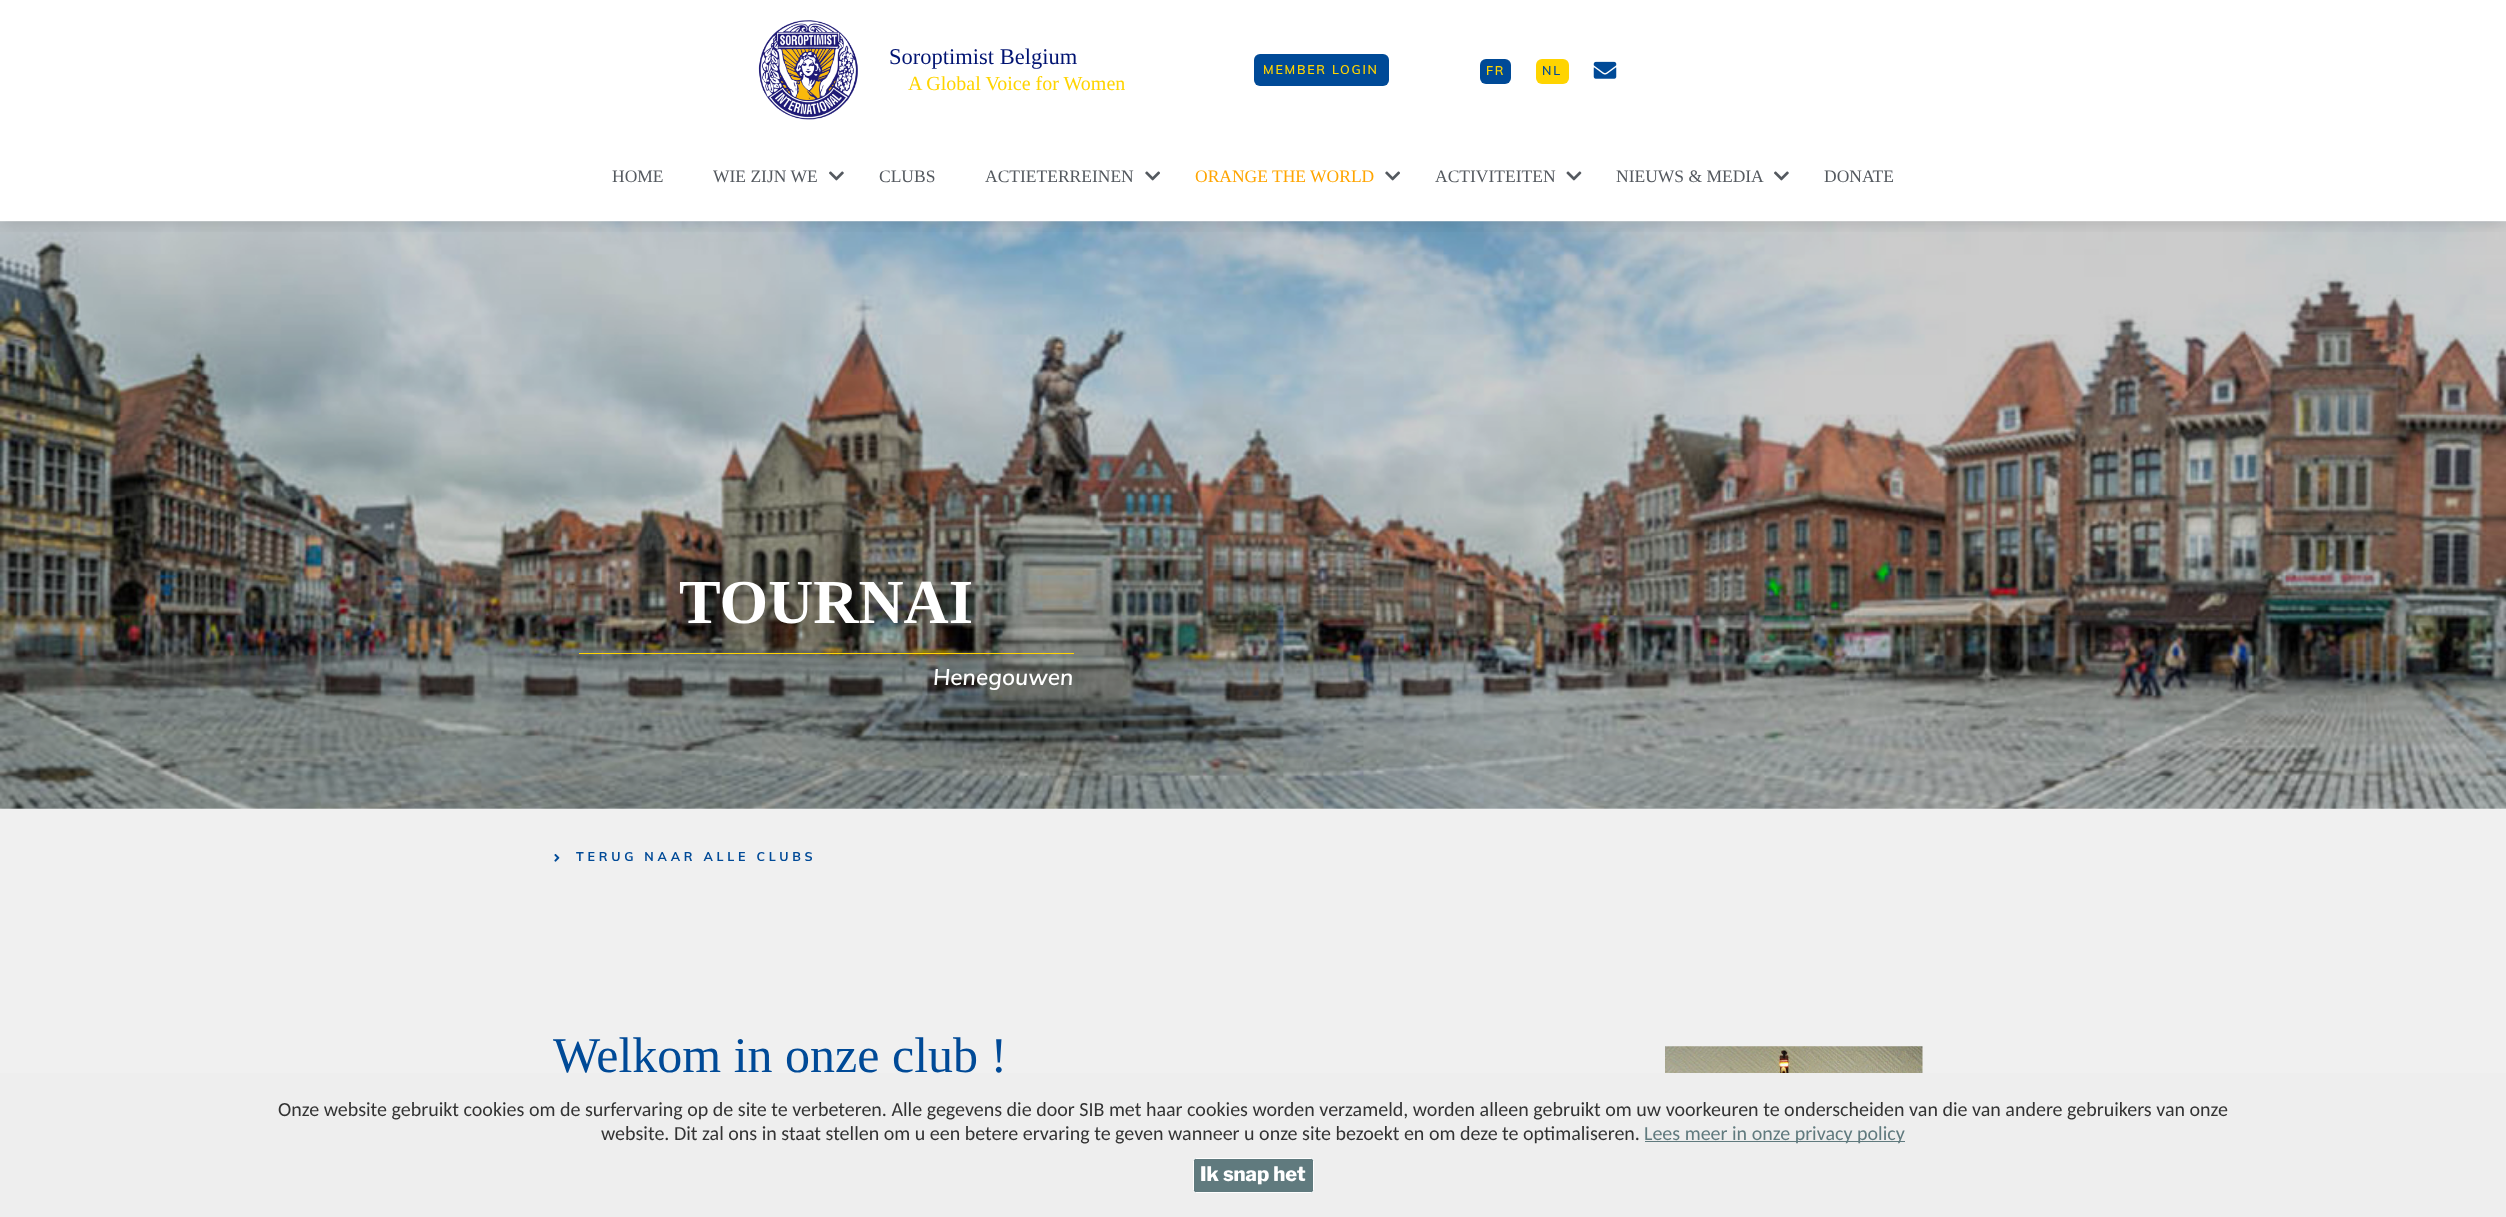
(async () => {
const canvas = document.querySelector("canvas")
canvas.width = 2506
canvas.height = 1217
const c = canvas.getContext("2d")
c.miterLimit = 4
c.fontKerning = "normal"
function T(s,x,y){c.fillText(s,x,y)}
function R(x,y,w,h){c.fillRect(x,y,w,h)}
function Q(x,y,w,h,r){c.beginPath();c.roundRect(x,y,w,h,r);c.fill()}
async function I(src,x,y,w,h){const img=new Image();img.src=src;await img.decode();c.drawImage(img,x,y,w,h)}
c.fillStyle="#fff"
R(0,0,2506,1217)
await I("6.png",0,221,2506,588)
c.save()
c.beginPath()
c.rect(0,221,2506,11)
c.clip()
c.fillStyle="#00000026"
c.filter="blur(9.5px)"
c.beginPath()
c.rect(0,0,2506,221)
c.fill()
c.filter="none"
c.restore()
await I("1.png",758,20,100,100)
c.font="22.5px Liberation Serif"
c.fillStyle="#001372"
T("Soroptimist Belgium",889,64)
c.font="20px Liberation Serif"
c.fillStyle="#ffd400"
T("A Global Voice for Women",908,90)
c.fillStyle="#004a97"
Q(1254,54,135,32,6)
c.letterSpacing="1.75px"
c.font="600 12.5px Muli"
c.fillStyle="#ffd400"
T("MEMBER LOGIN",1263,74)
c.fillStyle="#004a97"
Q(1480,59,31,25,6)
c.fillStyle="#ffd400"
T("FR",1486,75)
Q(1536,59,33,25,6)
c.fillStyle="#004a97"
T("NL",1542,75)
await I("2.png",1593,61,24,18)
c.letterSpacing="0px"
c.font="17.5px Liberation Serif"
c.fillStyle="#54595f"
T("HOME",612,182)
T("WIE ZIJN WE",713,182)
await I("3.png",829,171,15,10)
T("CLUBS",879,182)
T("ACTIETERREINEN",985,182)
await I("4.png",1145,171,15,10)
c.fillStyle="#ffa500"
T("ORANGE THE WORLD",1195,182)
await I("4.png",1385,171,15,10)
c.fillStyle="#54595f"
T("ACTIVITEITEN",1435,182)
await I("5.png",1566,171,16,10)
T("NIEUWS & MEDIA",1616,182)
await I("3.png",1774,171,15,10)
T("DONATE",1824,182)
c.fillStyle="#ffd400"
R(579,653,495,1)
c.font="bold 62.5px Liberation Serif"
c.fillStyle="#fff"
T("TOURNAI",679,623)
c.font="italic 600 22.5px Muli"
T("Henegouwen",933,685)
c.fillStyle="#f0f0f0"
R(0,809,2506,264)
await I("7.png",554,854,6,8)
c.letterSpacing="3.75px"
c.font="bold 12.5px Muli"
c.fillStyle="#004a97"
T("TERUG NAAR ALLE CLUBS",576,861)
c.letterSpacing="0px"
c.font="50px Liberation Serif"
T("Welkom in onze club !",553,1072)
await I("8.png",1665,1046,258,27)
c.fillStyle="#eee"
R(0,1073,2506,144)
c.font="20px Carlito"
c.fillStyle="#333"
T("Onze website gebruikt cookies om de surfervaring op de site te verbeteren. Alle gegevens die door SIB met haar cookies worden verzameld, worden alleen gebruikt om uw voorkeuren te onderscheiden van die van andere gebruikers van onze",278,1116)
T("website. Dit zal ons in staat stellen om u een betere ervaring te geven wanneer u onze site bezoekt en om deze te optimaliseren.",601,1140)
c.fillStyle="#607a7e"
R(1645,1141,260,1)
T("Lees meer in onze privacy policy",1644,1140)
c.beginPath()
c.roundRect(1193.5,1158.5,120,34,2)
c.fill()
c.strokeStyle="#fff"
c.stroke()
c.font="800 20px Libre Franklin"
c.fillStyle="#fff"
T("Ik snap het",1200,1181)
})()
